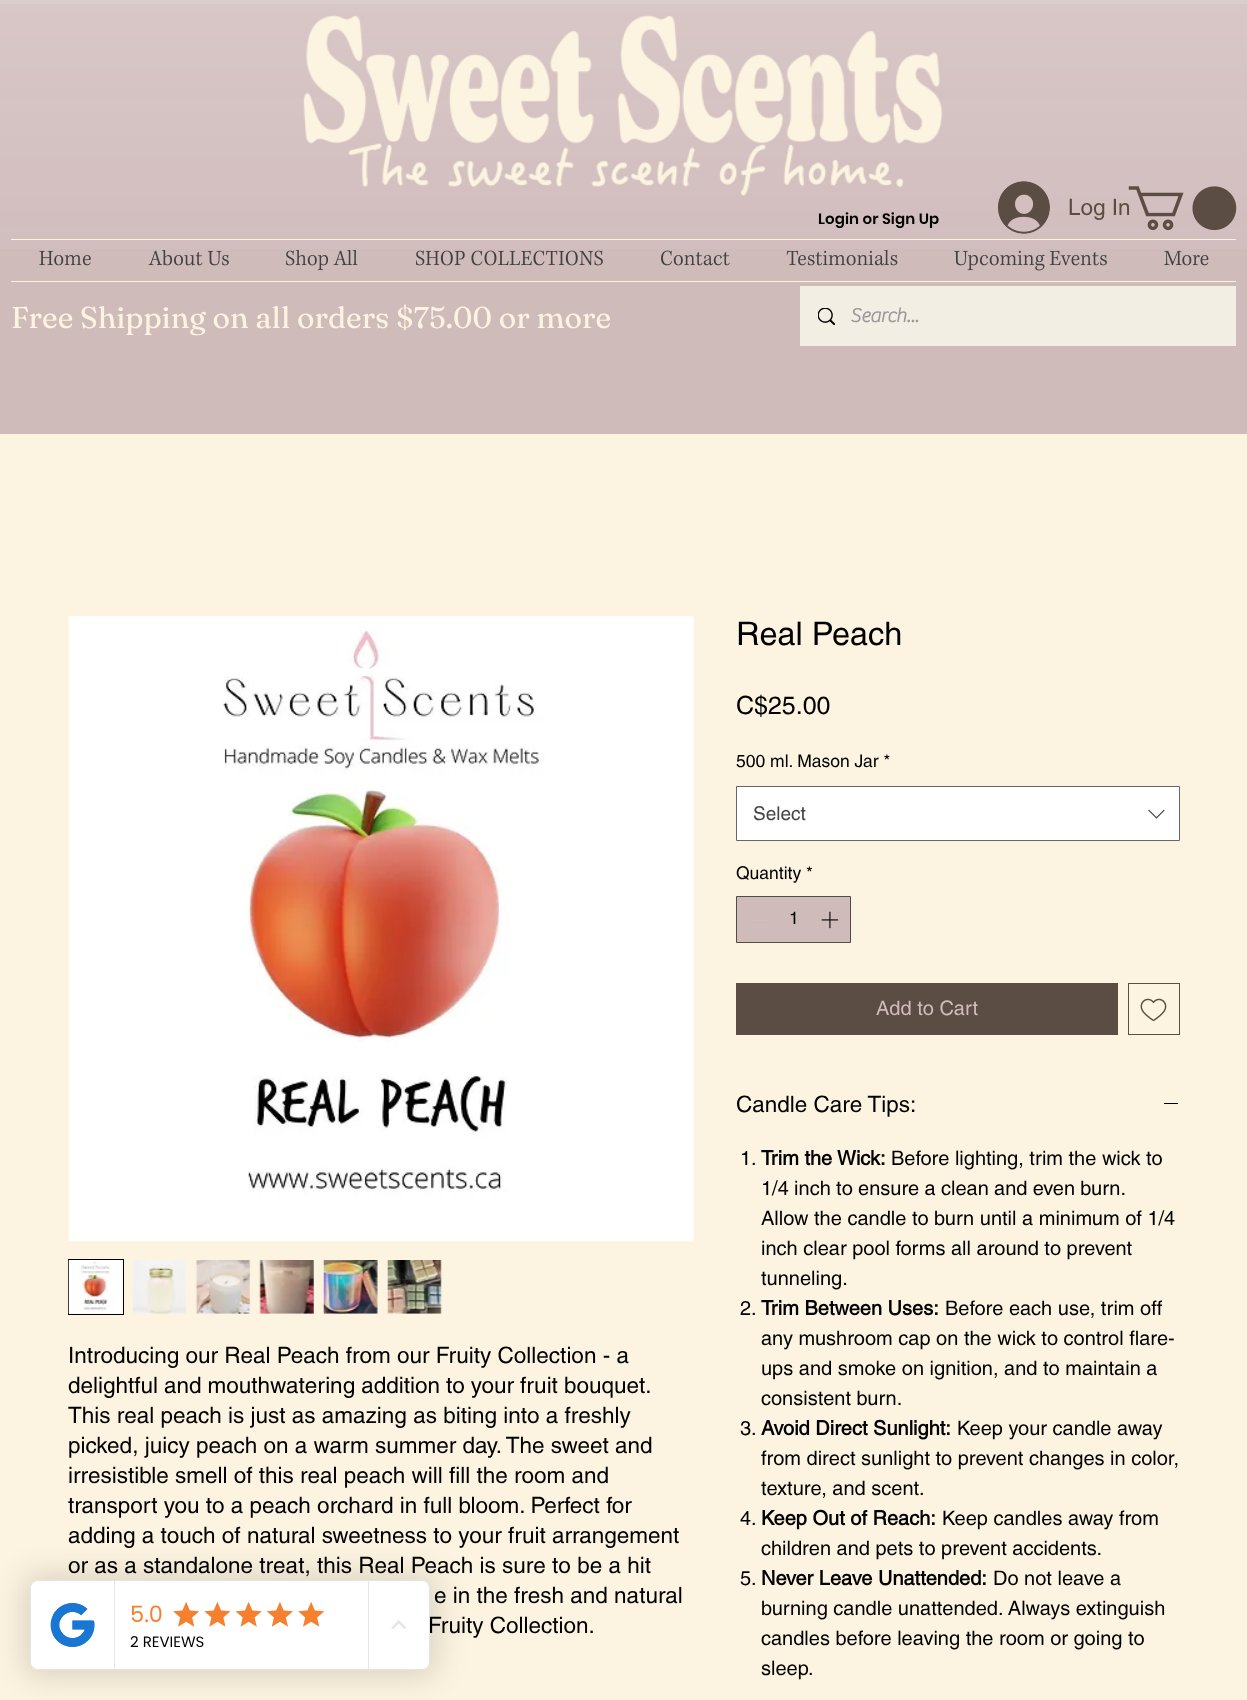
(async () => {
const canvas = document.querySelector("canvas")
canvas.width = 1247
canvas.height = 1700
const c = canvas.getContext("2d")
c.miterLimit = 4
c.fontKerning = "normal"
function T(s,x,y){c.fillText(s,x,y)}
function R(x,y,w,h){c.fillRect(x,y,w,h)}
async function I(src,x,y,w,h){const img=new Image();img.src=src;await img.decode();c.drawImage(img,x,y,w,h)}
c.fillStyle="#fcf4e0"
R(0,0,1247,1700)
c.fillStyle="#d0bbbb"
R(0,0,1247,434)
await I("1.png",0,0,1247,249)
await I("2.png",303,15,640,129)
await I("3.png",348,143,556,53)
c.letterSpacing="0.1px"
c.font="600 15px Poppins"
c.fillStyle="#000"
T("Login or Sign Up",818,224)
await I("4.png",998,181,52,53)
c.letterSpacing="0px"
c.font="22.5px helvetica"
c.fillStyle="#5b4d43"
T("Log In",1068,215)
await I("5.png",1128,186,109,45)
c.fillStyle="#fcf4e0"
R(11,239,1225,1)
R(11,281,1225,1)
await I("6.png",39,250,52,16)
await I("7.png",148,250,81,16)
await I("8.png",286,249,72,22)
await I("9.png",416,250,187,16)
await I("10.png",661,250,69,16)
await I("11.png",786,249,112,17)
await I("12.png",954,250,153,21)
await I("13.png",1164,250,45,16)
c.font="30px Fraunces"
T("Free Shipping on all orders $75.00 or more",11,328)
c.fillStyle="#f2eee4"
R(800,286,436,60)
await I("14.png",818,308,17,17)
c.font="bold 20px 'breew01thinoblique'"
c.fillStyle="#999"
T("Search...",850,322)
await I("15.png",68,616,626,626)
c.strokeStyle="#000"
c.strokeRect(68.5,1259.5,55,55)
await I("16.png",68,1260,55,54)
await I("17.png",132,1260,54,54)
await I("18.png",195,1260,56,54)
await I("19.png",259,1260,55,54)
await I("20.png",323,1260,55,54)
await I("21.png",387,1260,55,54)
c.font="22.5px helvetica"
c.fillStyle="#000"
T("Introducing our Real Peach from our Fruity Collection - a",68,1363)
c.wordSpacing="-0.25px"
T("delightful and mouthwatering addition to your fruit bouquet.",68,1393)
c.wordSpacing="0px"
T("This real peach is just as amazing as biting into a freshly",68,1423)
T("picked, juicy peach on a warm summer day. The sweet and",68,1453)
T("irresistible smell of this real peach will fill the room and",68,1483)
T("transport you to a peach orchard in full bloom. Perfect for",68,1513)
T("adding a touch of natural sweetness to your fruit arrangement",68,1543)
T("or as a standalone treat, this Real Peach is sure to be a hit",68,1573)
T("e in the fresh and natural",434,1603)
T("Fruity Collection.",428,1633)
c.font="32.5px helvetica"
T("Real Peach",736,645)
c.font="25px helvetica"
T("C$25.00",736,714)
c.font="17.5px helvetica"
T("500 ml. Mason Jar *",736,767)
c.fillStyle="#fff"
c.beginPath()
c.rect(736.5,786.5,443,54)
c.fill()
c.strokeStyle="#666"
c.stroke()
c.font="19px helvetica"
c.fillStyle="#444"
T("Select",753,820)
await I("22.png",1148,809,17,10)
c.font="17.5px helvetica"
c.fillStyle="#000"
T("Quantity *",736,879)
c.fillStyle="#d0bbbb"
c.beginPath()
c.rect(736.5,896.5,114,46)
c.fill()
c.strokeStyle="#534b4b"
c.stroke()
c.fillStyle="#ccc1c1"
R(751,920,16,1)
c.fillStyle="#000"
T("1",789,924)
await I("23.png",821,911,18,18)
c.fillStyle="#5b4d43"
R(736,983,382,52)
c.font="20px helvetica"
c.fillStyle="#d0bbbb"
T("Add to Cart",876,1015)
c.strokeStyle="#5b4d43"
c.strokeRect(1128.5,983.5,51,51)
await I("24.png",1140,998,27,23)
c.font="22.5px helvetica"
c.fillStyle="#000"
T("Candle Care Tips:",736,1112)
R(1164,1103,14,1)
c.font="20px helvetica"
T("1.",740,1165)
c.font="bold 20px helvetica"
T("Trim the Wick:",761,1165)
c.font="20px helvetica"
T("Before lighting, trim the wick to",891,1165)
c.wordSpacing="-0.25px"
T("1/4 inch to ensure a clean and even burn.",761,1195)
c.wordSpacing="0px"
T("Allow the candle to burn until a minimum of 1/4",761,1225)
T("inch clear pool forms all around to prevent",761,1255)
T("tunneling.",761,1285)
T("2.",740,1315)
c.font="bold 20px helvetica"
T("Trim Between Uses:",761,1315)
c.font="20px helvetica"
T("Before each use, trim off",945,1315)
T("any mushroom cap on the wick to control flare-",761,1345)
T("ups and smoke on ignition, and to maintain a",761,1375)
T("consistent burn.",761,1405)
T("3.",740,1435)
c.font="bold 20px helvetica"
T("Avoid Direct Sunlight:",761,1435)
c.font="20px helvetica"
T("Keep your candle away",957,1435)
T("from direct sunlight to prevent changes in color,",761,1465)
T("texture, and scent.",761,1495)
T("4.",740,1525)
c.font="bold 20px helvetica"
T("Keep Out of Reach:",761,1525)
c.font="20px helvetica"
T("Keep candles away from",942,1525)
T("children and pets to prevent accidents.",761,1555)
T("5.",740,1585)
c.font="bold 20px helvetica"
T("Never Leave Unattended:",761,1585)
c.font="20px helvetica"
T("Do not leave a",993,1585)
T("burning candle unattended. Always extinguish",761,1615)
T("candles before leaving the room or going to",761,1645)
T("sleep.",761,1675)
c.fillStyle="#0000001f"
c.filter="blur(15px)"
c.beginPath()
c.roundRect(23,1573,415,105,15)
c.fill()
c.filter="none"
c.fillStyle="#fff"
c.beginPath()
c.roundRect(30.5,1580.5,399,89,7.5)
c.fill()
c.strokeStyle="#e5e5e5"
c.stroke()
c.beginPath()
c.roundRect(31,1581,84,88,[8,0,0,8])
c.fill()
c.fillStyle="#e5e5e5"
R(114,1581,1,88)
await I("25.png",50,1603,45,44)
R(368,1581,1,88)
c.font="22.5px Poppins"
c.fillStyle="#f7802f"
T("5.0",130,1622)
await I("26.png",173,1602,26,25)
await I("27.png",173,1602,26,25)
await I("28.png",204,1602,26,25)
await I("29.png",204,1602,27,25)
await I("31.png",236,1602,26,25)
await I("30.png",235,1602,27,25)
await I("32.png",267,1602,26,25)
await I("33.png",267,1602,26,25)
await I("26.png",298,1602,26,25)
await I("27.png",298,1602,26,25)
c.font="15px Poppins"
c.fillStyle="#000"
T("2 REVIEWS",130,1647)
await I("34.png",391,1620,15,9)
})()
